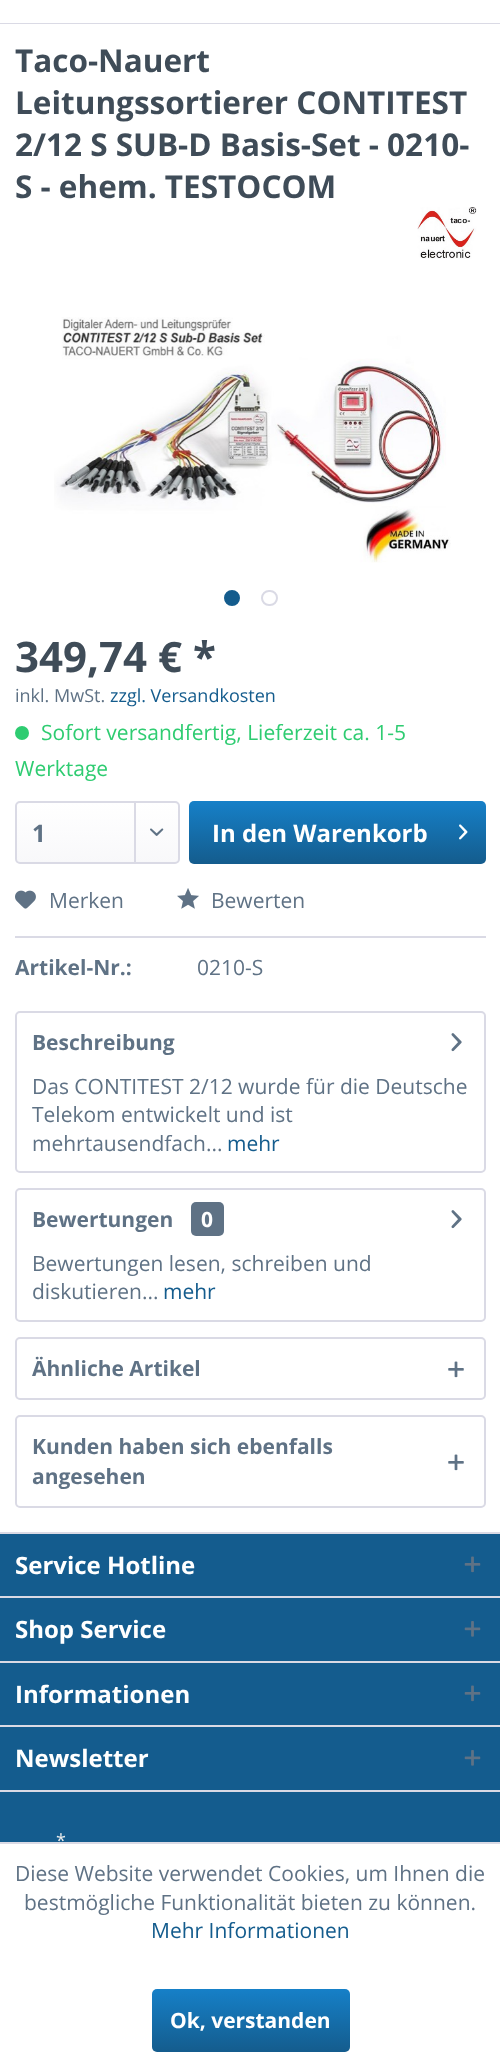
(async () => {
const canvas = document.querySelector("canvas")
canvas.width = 500
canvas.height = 2067
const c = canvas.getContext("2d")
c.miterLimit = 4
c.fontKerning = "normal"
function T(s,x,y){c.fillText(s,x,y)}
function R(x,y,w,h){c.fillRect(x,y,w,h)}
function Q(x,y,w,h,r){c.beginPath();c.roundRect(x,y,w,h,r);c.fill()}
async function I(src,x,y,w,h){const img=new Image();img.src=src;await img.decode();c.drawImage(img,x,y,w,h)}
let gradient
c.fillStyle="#fff"
R(0,0,500,2067)
c.fillStyle="#dadae5"
R(0,23,500,1)
c.font="bold 31.5px Open Sans"
c.fillStyle="#3f4c58"
T("Taco-Nauert",15,72)
T("Leitungssortierer CONTITEST",15,114)
T("2/12 S SUB-D Basis-Set - 0210-",15,156)
T("S - ehem. TESTOCOM",15,198)
await I("1.png",417,207,60,52)
await I("2.png",54,317,397,246)
c.fillStyle="#145c8d"
c.beginPath()
c.arc(232,598,7,0,7)
c.fill()
c.strokeStyle="#145c8d"
c.lineWidth=2
c.stroke()
c.beginPath()
c.roundRect(262,591,15,14,7)
c.strokeStyle="#dadae5"
c.stroke()
c.font="bold 42px Open Sans"
c.fillStyle="#3f4c58"
T("349,74 € *",15,672)
c.font="18px Open Sans"
c.fillStyle="#5f7285"
T("inkl. MwSt.",15,702)
c.fillStyle="#145c8d"
T("zzgl. Versandkosten",110,702)
c.fillStyle="#2ecc71"
c.beginPath()
c.arc(22,733,7,0,7)
c.fill()
c.font="21px Open Sans"
T("Sofort versandfertig, Lieferzeit ca. 1-5",41,740)
T("Werktage",15,776)
gradient = c.createLinearGradient(98,803,98,863)
gradient.addColorStop(0,"#fff")
gradient.addColorStop(1,"#f8f8fa")
c.fillStyle = gradient
Q(17,803,162,60,3)
c.beginPath()
c.roundRect(16,802,163,61,4)
c.stroke()
c.font="bold 24px Open Sans"
c.fillStyle="#5f7285"
T("1",32,842)
c.fillStyle="#dadae5"
R(134,803,2,60)
await I("3.png",150,828,14,8)
gradient = c.createLinearGradient(338,801,338,864)
gradient.addColorStop(0,"#1680c8")
gradient.addColorStop(1,"#145c8d")
c.fillStyle = gradient
Q(189,801,297,63,5)
c.fillStyle="#fff"
T("In den Warenkorb",212,842)
await I("4.png",459,824,9,16)
c.fillStyle="#dadae5"
R(15,936,471,2)
await I("5.png",15,890,21,19)
c.font="21px Open Sans"
c.fillStyle="#5f7285"
T("Merken",49,908)
await I("6.png",177,888,22,21)
T("Bewerten",211,908)
c.font="bold 21px Open Sans"
T("Artikel-Nr.:",15,975)
c.font="21px Open Sans"
T("0210-S",197,975)
c.beginPath()
c.roundRect(16,1012,469,160,4)
c.stroke()
c.font="bold 21px Open Sans"
T("Beschreibung",32,1050)
await I("7.png",451,1033,11,19)
c.font="21px Open Sans"
T("Das CONTITEST 2/12 wurde für die Deutsche",32,1094)
T("Telekom entwickelt und ist",32,1122)
T("mehrtausendfach...",32,1151)
c.fillStyle="#145c8d"
T("mehr",227,1151)
c.beginPath()
c.roundRect(16,1189,469,132,4)
c.stroke()
c.font="bold 21px Open Sans"
c.fillStyle="#5f7285"
T("Bewertungen",32,1227)
await I("7.png",451,1210,11,19)
Q(191,1202,33,34,5)
c.fillStyle="#fff"
T("0",201,1227)
c.font="21px Open Sans"
c.fillStyle="#5f7285"
T("Bewertungen lesen, schreiben und",32,1271)
T("diskutieren...",32,1299)
c.fillStyle="#145c8d"
T("mehr",163,1299)
c.beginPath()
c.roundRect(16,1338,469,61,4)
c.stroke()
c.font="bold 21px Open Sans"
c.fillStyle="#5f7285"
T("Ähnliche Artikel",32,1376)
await I("8.png",448,1361,16,17)
c.beginPath()
c.roundRect(16,1416,469,91,4)
c.stroke()
T("Kunden haben sich ebenfalls",32,1454)
await I("8.png",448,1454,16,17)
T("angesehen",32,1484)
c.fillStyle="#145c8e"
R(0,1534,500,308)
c.fillStyle="#dadae5"
R(0,1532,500,2)
c.font="bold 24px Open Sans"
c.fillStyle="#fff"
T("Service Hotline",15,1574)
await I("9.png",464,1556,17,17)
c.fillStyle="#dadae5"
R(0,1596,500,2)
c.fillStyle="#fff"
T("Shop Service",15,1638)
await I("10.png",464,1621,17,16)
c.fillStyle="#dadae5"
R(0,1661,500,2)
c.fillStyle="#fff"
T("Informationen",15,1703)
await I("9.png",464,1685,17,17)
c.fillStyle="#dadae5"
R(0,1725,500,2)
R(0,1790,500,2)
c.fillStyle="#fff"
T("Newsletter",15,1767)
await I("10.png",464,1750,17,16)
c.font="18px Open Sans"
c.fillStyle="#eceded"
T("*",56,1847)
c.fillStyle="#dadae5"
R(0,1842,500,2)
c.font="21px Open Sans"
c.fillStyle="#5f7285"
T("Diese Website verwendet Cookies, um Ihnen die",15,1881)
T("bestmögliche Funktionalität bieten zu können.",24,1910)
c.fillStyle="#145c8d"
T("Mehr Informationen",151,1938)
gradient = c.createLinearGradient(251,1989,251,2052)
gradient.addColorStop(0,"#1680c8")
gradient.addColorStop(1,"#145c8d")
c.fillStyle = gradient
Q(152,1989,198,63,5)
c.font="bold 21px Open Sans"
c.fillStyle="#fff"
T("Ok, verstanden",170,2028)
})()
